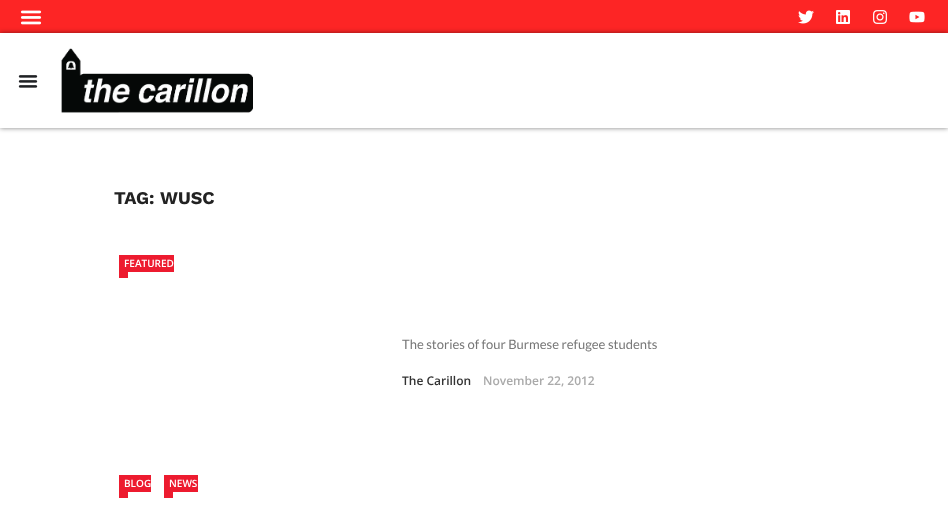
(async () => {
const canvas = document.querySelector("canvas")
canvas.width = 948
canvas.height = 505
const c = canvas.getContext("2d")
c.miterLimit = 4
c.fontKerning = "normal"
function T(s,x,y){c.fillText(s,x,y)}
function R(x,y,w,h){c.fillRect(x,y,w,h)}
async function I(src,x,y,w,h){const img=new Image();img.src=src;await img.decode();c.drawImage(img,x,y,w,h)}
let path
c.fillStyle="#fff"
R(0,0,948,505)
c.fillStyle="#fd2525"
R(0,0,948,33)
await I("1.png",20,10,22,15)
await I("2.png",798,10,16,14)
await I("3.png",836,10,14,14)
await I("4.png",873,10,14,14)
await I("5.png",909,11,16,12)
c.save()
path = new Path2D("M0 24h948v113h-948zm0 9h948v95h-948z")
c.clip(path,"evenodd")
c.fillStyle="#00000080"
c.filter="blur(2.5px)"
c.beginPath()
c.rect(0,33,948,95)
c.fill()
c.filter="none"
c.restore()
await I("6.png",18,75,20,13)
await I("7.png",61,48,192,65)
c.font="bold 18px Work Sans"
c.fillStyle="#222"
T("TAG:",114,204)
T("WUSC",160,204)
c.fillStyle="#ed1b2f"
R(119,255,55,17)
c.font="600 10px Open Sans"
c.fillStyle="#fff"
T("FEATURED",124,267)
c.fillStyle="#ed1b2f"
R(119,272,9,6)
c.font="13px Lato"
c.fillStyle="#777"
T("The stories of four Burmese refugee students",402,349)
c.font="600 12px Open Sans"
c.fillStyle="#333"
T("The Carillon",402,385)
c.fillStyle="#aaa"
T("November 22, 2012",483,385)
c.fillStyle="#ed1b2f"
R(119,475,32,17)
c.font="600 10px Open Sans"
c.fillStyle="#fff"
T("BLOG",124,487)
c.fillStyle="#ed1b2f"
R(119,492,9,6)
R(164,475,34,17)
c.fillStyle="#fff"
T("NEWS",169,487)
c.fillStyle="#ed1b2f"
R(164,492,9,6)
})()
